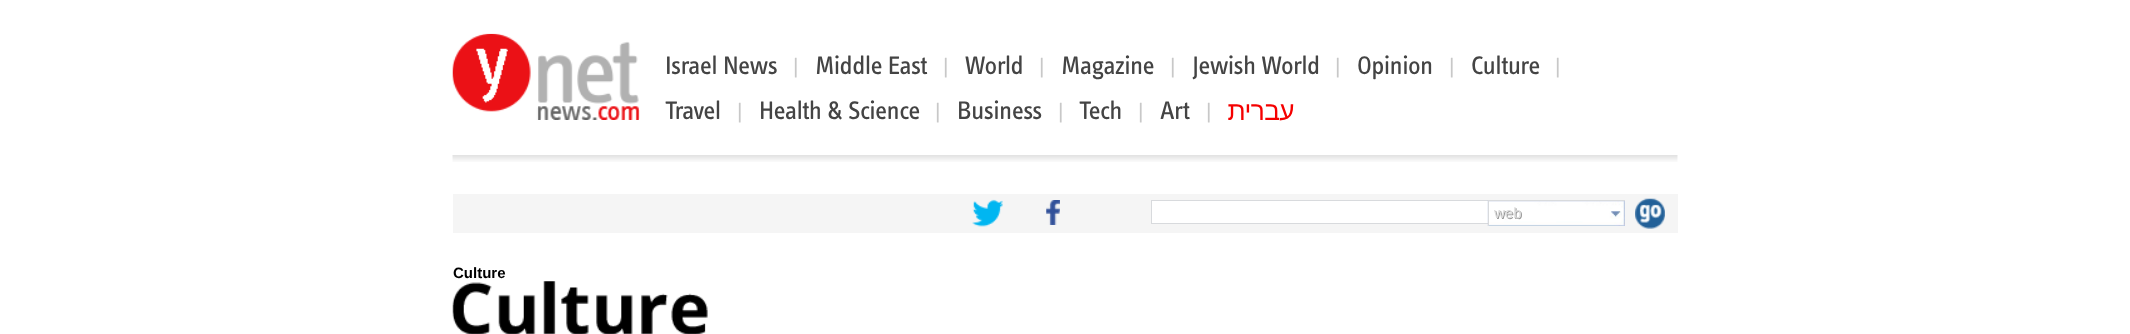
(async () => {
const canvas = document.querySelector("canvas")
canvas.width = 2130
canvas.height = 334
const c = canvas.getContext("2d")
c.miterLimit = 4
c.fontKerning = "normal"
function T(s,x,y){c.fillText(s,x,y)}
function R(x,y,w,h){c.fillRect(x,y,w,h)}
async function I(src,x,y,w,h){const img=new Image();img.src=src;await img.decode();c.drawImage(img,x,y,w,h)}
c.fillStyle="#fff"
R(0,0,2130,334)
await I("1.png",452,33,188,87)
c.letterSpacing="-0.6px"
c.font="26.25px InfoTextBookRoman"
c.fillStyle="#444"
T("Israel News",665,74)
c.letterSpacing="0px"
c.font="21px Liberation Sans"
c.fillStyle="#c8c8c8"
T("|",793,73)
c.letterSpacing="-0.6px"
c.font="26.25px InfoTextBookRoman"
c.fillStyle="#444"
T("Middle East",815,74)
c.letterSpacing="0px"
c.font="21px Liberation Sans"
c.fillStyle="#c8c8c8"
T("|",943,73)
c.letterSpacing="-0.6px"
c.font="26.25px InfoTextBookRoman"
c.fillStyle="#444"
T("World",965,74)
c.letterSpacing="0px"
c.font="21px Liberation Sans"
c.fillStyle="#c8c8c8"
T("|",1039,73)
c.letterSpacing="-0.6px"
c.font="26.25px InfoTextBookRoman"
c.fillStyle="#444"
T("Magazine",1061,74)
c.letterSpacing="0px"
c.font="21px Liberation Sans"
c.fillStyle="#c8c8c8"
T("|",1170,73)
c.letterSpacing="-0.6px"
c.font="26.25px InfoTextBookRoman"
c.fillStyle="#444"
T("Jewish World",1192,74)
c.letterSpacing="0px"
c.font="21px Liberation Sans"
c.fillStyle="#c8c8c8"
T("|",1335,73)
c.letterSpacing="-0.6px"
c.font="26.25px InfoTextBookRoman"
c.fillStyle="#444"
T("Opinion",1357,74)
c.letterSpacing="0px"
c.font="21px Liberation Sans"
c.fillStyle="#c8c8c8"
T("|",1449,73)
c.letterSpacing="-0.6px"
c.font="26.25px InfoTextBookRoman"
c.fillStyle="#444"
T("Culture",1471,74)
c.letterSpacing="0px"
c.font="21px Liberation Sans"
c.fillStyle="#c8c8c8"
T("|",1555,73)
c.letterSpacing="-0.6px"
c.font="26.25px InfoTextBookRoman"
c.fillStyle="#444"
T("Travel",665,119)
c.letterSpacing="0px"
c.font="21px Liberation Sans"
c.fillStyle="#c8c8c8"
T("|",737,118)
c.letterSpacing="-0.6px"
c.font="26.25px InfoTextBookRoman"
c.fillStyle="#444"
T("Health & Science",759,119)
c.letterSpacing="0px"
c.font="21px Liberation Sans"
c.fillStyle="#c8c8c8"
T("|",935,118)
c.letterSpacing="-0.6px"
c.font="26.25px InfoTextBookRoman"
c.fillStyle="#444"
T("Business",957,119)
c.letterSpacing="0px"
c.font="21px Liberation Sans"
c.fillStyle="#c8c8c8"
T("|",1058,118)
c.letterSpacing="-0.6px"
c.font="26.25px InfoTextBookRoman"
c.fillStyle="#444"
T("Tech",1079,119)
c.letterSpacing="0px"
c.font="21px Liberation Sans"
c.fillStyle="#c8c8c8"
T("|",1138,118)
c.letterSpacing="-0.6px"
c.font="26.25px InfoTextBookRoman"
c.fillStyle="#444"
T("Art",1160,119)
c.letterSpacing="0px"
c.font="21px Liberation Sans"
c.fillStyle="#c8c8c8"
T("|",1206,118)
c.letterSpacing="-0.6px"
c.direction="rtl"
c.font="26.25px Liberation Sans"
c.fillStyle="#f50000"
T("עברית",1294,120)
await I("2.png",452,155,1226,7)
c.fillStyle="#f5f5f5"
R(453,194,1225,39)
await I("3.png",972,199,31,28)
await I("4.png",1046,200,14,25)
c.fillStyle="#fff"
R(1152,201,336,22)
c.strokeStyle="#d8dadd"
c.strokeRect(1151.5,200.5,421,23)
await I("5.png",1487,200,138,26)
c.save()
c.beginPath()
c.rect(1488,200,137,26)
c.clip()
c.strokeRect(1488.5,200.5,139,28)
c.restore()
c.letterSpacing="0px"
c.direction="ltr"
c.font="15px Liberation Sans"
c.fillStyle="#989898"
T("web",1495,219)
c.fillStyle="#dcdcdc"
T("web",1494,218)
await I("6.png",1635,198,30,31)
c.font="bold 15px Liberation Sans"
c.fillStyle="#000"
T("Culture",453,278)
await I("7.png",452,281,256,53)
})()
